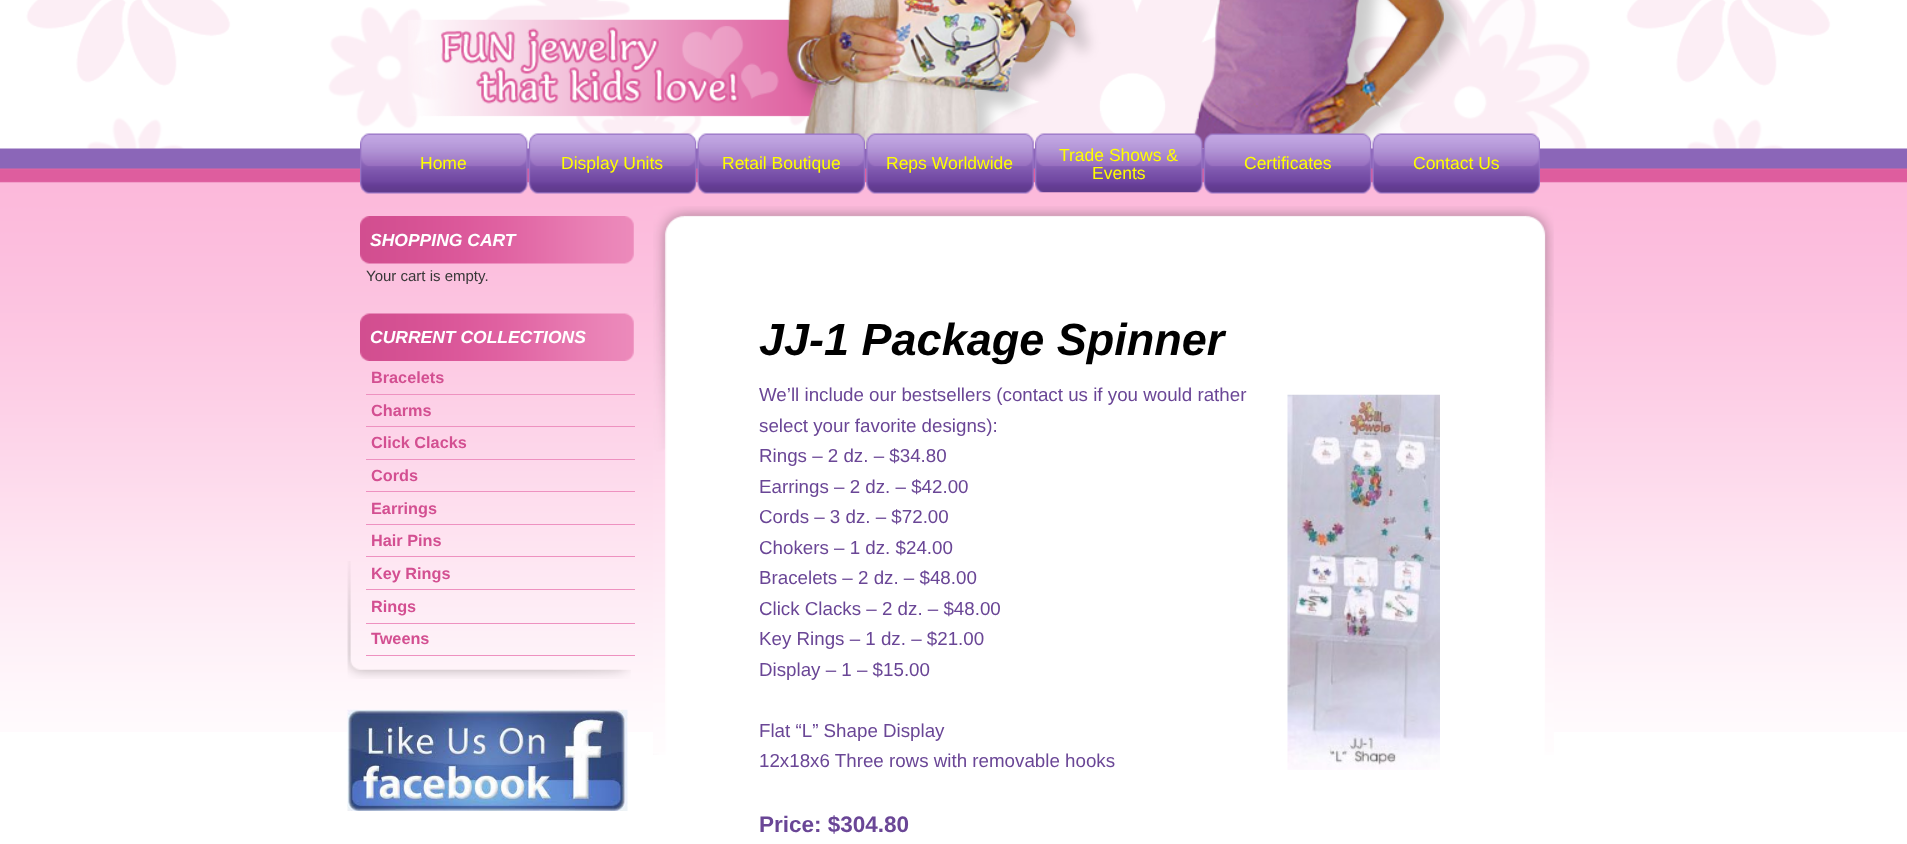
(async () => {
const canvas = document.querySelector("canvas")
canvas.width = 1907
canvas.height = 844
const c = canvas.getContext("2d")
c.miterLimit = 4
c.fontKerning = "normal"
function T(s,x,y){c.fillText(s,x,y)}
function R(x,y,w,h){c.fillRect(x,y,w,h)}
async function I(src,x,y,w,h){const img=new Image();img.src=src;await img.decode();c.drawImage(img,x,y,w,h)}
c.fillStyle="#fff"
R(0,0,1907,844)
await I("1.png",0,0,1907,732)
await I("2.png",408,0,1059,149)
await I("3.png",360,133,168,61)
c.font="17.5px Liberation Sans"
c.fillStyle="#ff0"
T("Home",420,169)
await I("4.png",528,133,169,61)
T("Display Units",561,169)
await I("5.png",697,133,168,61)
T("Retail Boutique",722,169)
await I("6.png",866,133,168,61)
T("Reps Worldwide",886,169)
await I("7.png",1035,133,168,60)
T("Trade Shows &",1059,161)
T("Events",1092,179)
await I("8.png",1203,133,169,61)
T("Certificates",1244,169)
await I("9.png",1372,133,168,61)
T("Contact Us",1413,169)
await I("10.png",360,216,274,48)
c.font="italic bold 17.5px Liberation Sans"
c.fillStyle="#fff"
T("SHOPPING CART",370,246)
c.font="15px Liberation Sans"
c.fillStyle="#373737"
T("Your cart is empty.",366,281)
await I("11.png",347,561,284,118)
await I("12.png",360,313,274,48)
c.font="italic bold 17.5px Liberation Sans"
c.fillStyle="#fff"
T("CURRENT COLLECTIONS",370,343)
c.fillStyle="#ee91c0"
R(366,394,269,1)
c.font="bold 16.25px Liberation Sans"
c.fillStyle="#d34f91"
T("Bracelets",371,383)
c.fillStyle="#ee91c0"
R(366,426,269,1)
c.fillStyle="#d34f91"
T("Charms",371,416)
c.fillStyle="#ee91c0"
R(366,459,269,1)
c.fillStyle="#d34f91"
T("Click Clacks",371,448)
c.fillStyle="#ee91c0"
R(366,491,269,1)
c.fillStyle="#d34f91"
T("Cords",371,481)
c.fillStyle="#ee91c0"
R(366,524,269,1)
c.fillStyle="#d34f91"
T("Earrings",371,514)
c.fillStyle="#ee91c0"
R(366,556,269,1)
c.fillStyle="#d34f91"
T("Hair Pins",371,546)
c.fillStyle="#ee91c0"
R(366,589,269,1)
c.fillStyle="#d34f91"
T("Key Rings",371,579)
c.fillStyle="#ee91c0"
R(366,623,269,1)
c.fillStyle="#d34f91"
T("Rings",371,612)
c.fillStyle="#ee91c0"
R(366,655,269,1)
c.fillStyle="#d34f91"
T("Tweens",371,644)
await I("13.png",347,709,281,102)
await I("14.png",653,206,901,549)
c.font="italic bold 45px Liberation Sans"
c.fillStyle="#000"
T("JJ-1 Package Spinner",759,355)
c.font="18.75px Liberation Sans"
c.fillStyle="#6a4696"
T("We’ll include our bestsellers (contact us if you would rather",759,401)
await I("15.png",1287,394,153,376)
T("select your favorite designs):",759,432)
T("Rings – 2 dz. – $34.80",759,462)
T("Earrings – 2 dz. – $42.00",759,493)
T("Cords – 3 dz. – $72.00",759,523)
T("Chokers – 1 dz. $24.00",759,554)
T("Bracelets – 2 dz. – $48.00",759,584)
T("Click Clacks – 2 dz. – $48.00",759,615)
T("Key Rings – 1 dz. – $21.00",759,645)
T("Display – 1 – $15.00",759,676)
T("Flat “L” Shape Display",759,737)
T("12x18x6 Three rows with removable hooks",759,767)
c.font="bold 22.5px Liberation Sans"
T("Price: $304.80",759,832)
})()
